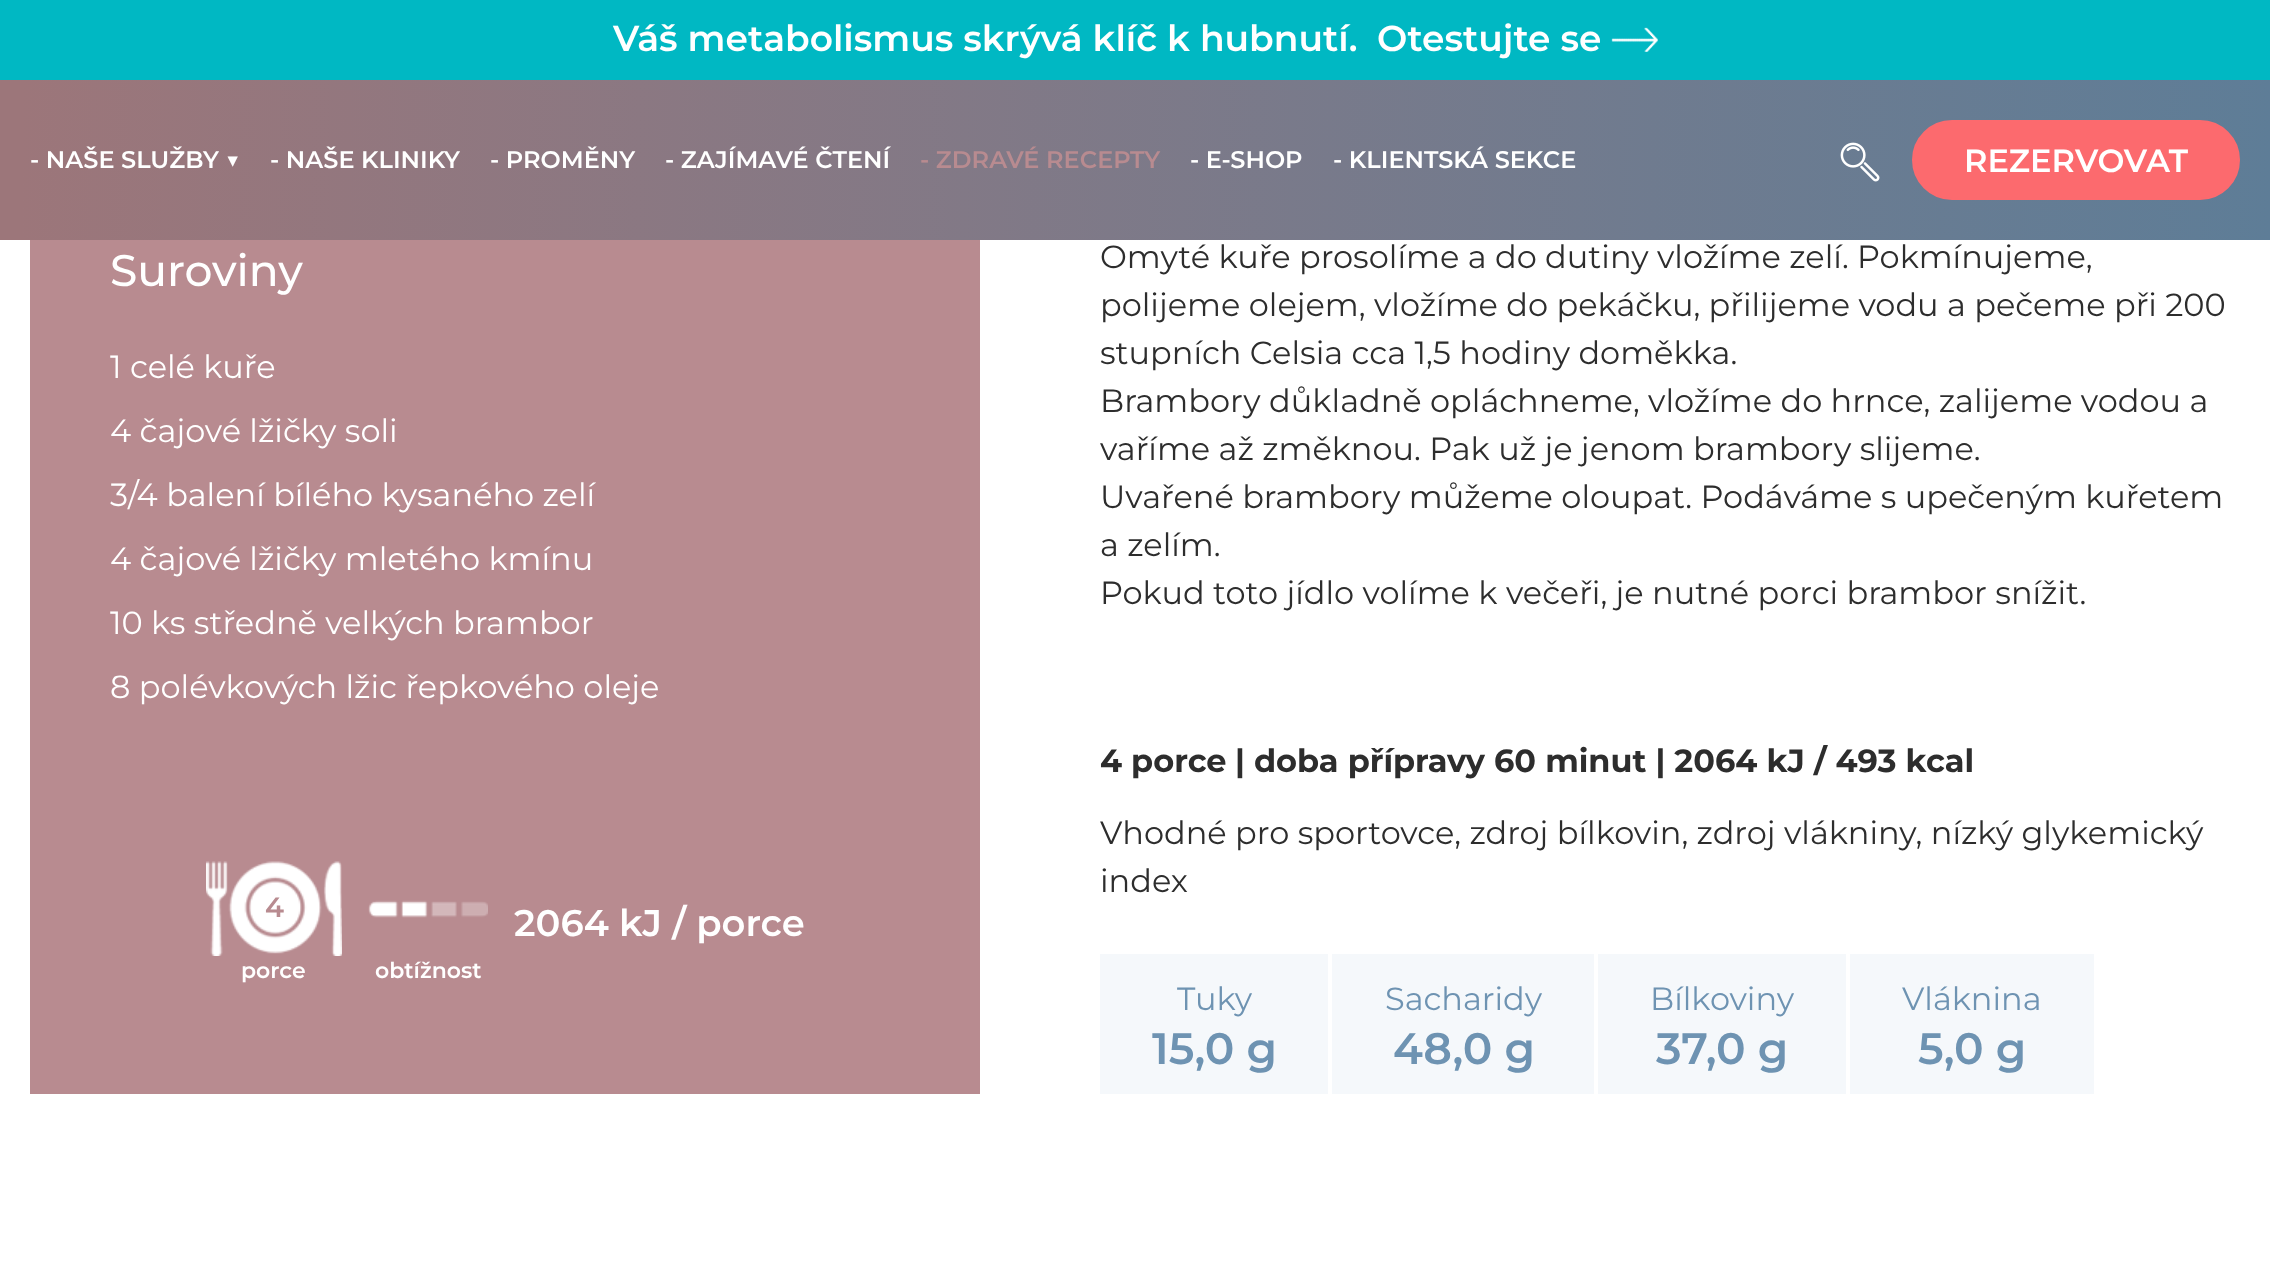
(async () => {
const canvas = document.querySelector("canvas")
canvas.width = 2270
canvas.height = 1275
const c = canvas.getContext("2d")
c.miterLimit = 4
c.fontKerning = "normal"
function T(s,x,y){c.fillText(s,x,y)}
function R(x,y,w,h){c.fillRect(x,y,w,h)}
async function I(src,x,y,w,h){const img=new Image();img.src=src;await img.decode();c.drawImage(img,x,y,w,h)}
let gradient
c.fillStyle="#fff"
R(0,0,2270,1275)
c.fillStyle="#00b8c3"
R(0,0,2270,80)
c.font="600 36px Montserrat"
c.fillStyle="#fff"
T("Váš metabolismus skrývá klíč k hubnutí.",613,51)
T("Otestujte se",1377,51)
await I("1.png",1611,27,47,25)
gradient = c.createLinearGradient(-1.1,140,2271,180)
gradient.addColorStop(.01,"#9c767a")
gradient.addColorStop(1,"#5e7d97")
c.fillStyle = gradient
R(0,80,2270,160)
c.font="600 24px Montserrat"
c.fillStyle="#fff"
T("- NAŠE SLUŽBY ▼",30,168)
T("- NAŠE KLINIKY",270,168)
T("- PROMĚNY",490,168)
T("- ZAJÍMAVÉ ČTENÍ",665,168)
c.fillStyle="#b88b90"
T("- ZDRAVÉ RECEPTY",920,168)
c.fillStyle="#fff"
T("- E-SHOP",1190,168)
T("- KLIENTSKÁ SEKCE",1333,168)
await I("2.png",1840,142,40,40)
c.fillStyle="#fc6a6e"
c.beginPath()
c.roundRect(1913,121,326,78,39)
c.fill()
c.strokeStyle="#fc6a6e"
c.lineWidth=2
c.stroke()
c.font="600 32px Montserrat"
c.fillStyle="#fff"
T("REZERVOVAT",1964,172)
c.fillStyle="#b88b90"
R(30,240,950,854)
c.font="500 44px Montserrat"
c.fillStyle="#fff"
T("Suroviny",110,286)
c.font="32px Montserrat"
T("1 celé kuře",110,378)
T("4 čajové lžičky soli",110,442)
T("3/4 balení bílého kysaného zelí",110,506)
T("4 čajové lžičky mletého kmínu",110,570)
T("10 ks středně velkých brambor",110,634)
T("8 polévkových lžic řepkového oleje",110,698)
await I("3.png",206,861,136,95)
c.font="600 28px Montserrat"
c.fillStyle="#b88b90"
T("4",265,917)
c.font="600 22px Montserrat"
c.fillStyle="#fff"
T("porce",241,978)
c.font="600 37px Montserrat"
T("2064 kJ / porce",514,936)
await I("4.png",368,900,120,18)
c.font="600 22px Montserrat"
T("obtížnost",375,978)
c.font="32px Montserrat"
c.fillStyle="#2d2d2d"
T("Omyté kuře prosolíme a do dutiny vložíme zelí. Pokmínujeme,",1100,268)
T("polijeme olejem, vložíme do pekáčku, přilijeme vodu a pečeme při 200",1100,316)
T("stupních Celsia cca 1,5 hodiny doměkka.",1100,364)
T("Brambory důkladně opláchneme, vložíme do hrnce, zalijeme vodou a",1100,412)
T("vaříme až změknou. Pak už je jenom brambory slijeme.",1100,460)
T("Uvařené brambory můžeme oloupat. Podáváme s upečeným kuřetem",1100,508)
T("a zelím.",1100,556)
T("Pokud toto jídlo volíme k večeři, je nutné porci brambor snížit.",1100,604)
c.font="bold 32px Montserrat"
T("4 porce",1100,772)
T("| doba přípravy 60 minut | 2064 kJ / 493 kcal",1235,772)
c.font="32px Montserrat"
T("Vhodné pro sportovce, zdroj bílkovin, zdroj vlákniny, nízký glykemický",1100,844)
T("index",1100,892)
c.fillStyle="#f5f8fb"
R(1100,954,994,140)
c.fillStyle="#fff"
R(1328,950,4,144)
c.fillStyle="#6e93b2"
T("Tuky",1177,1010)
c.font="600 44px Montserrat"
T("15,0 g",1152,1064)
c.fillStyle="#fff"
R(1594,950,4,144)
c.font="32px Montserrat"
c.fillStyle="#6e93b2"
T("Sacharidy",1385,1010)
c.font="600 44px Montserrat"
T("48,0 g",1393,1064)
c.fillStyle="#fff"
R(1846,950,4,144)
c.font="32px Montserrat"
c.fillStyle="#6e93b2"
T("Bílkoviny",1650,1010)
c.font="600 44px Montserrat"
T("37,0 g",1656,1064)
c.font="32px Montserrat"
T("Vláknina",1902,1010)
c.font="600 44px Montserrat"
T("5,0 g",1918,1064)
})()
